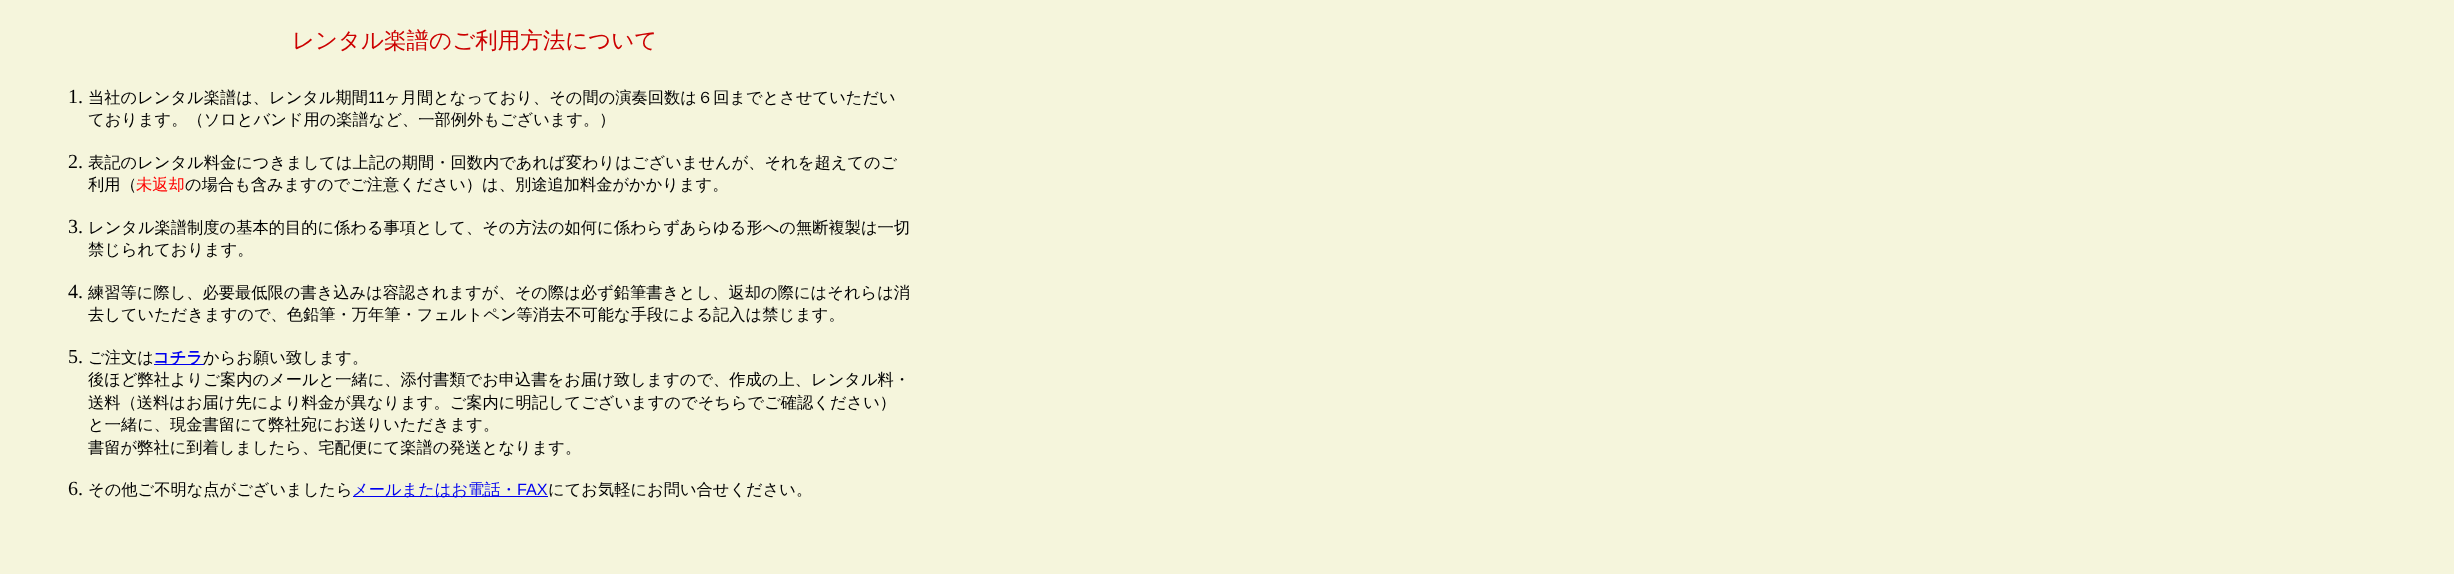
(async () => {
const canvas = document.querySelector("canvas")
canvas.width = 2454
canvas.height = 574
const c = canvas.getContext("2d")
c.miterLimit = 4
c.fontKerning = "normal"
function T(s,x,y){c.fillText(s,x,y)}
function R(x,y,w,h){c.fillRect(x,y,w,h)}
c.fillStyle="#f5f5dc"
R(0,0,2454,574)
c.font="500 22.5px WenQuanYi Zen Hei"
c.fillStyle="#c00"
T("レンタル楽譜のご利用方法について",292,48)
c.font="20px Liberation Serif"
c.fillStyle="#000"
T("1.",68,103)
c.font="500 16.25px WenQuanYi Zen Hei"
T("当社のレンタル楽譜は、レンタル期間",88,103)
c.font="16.25px Liberation Sans"
T("11",368,103)
c.font="500 16.25px WenQuanYi Zen Hei"
T("ヶ月間となっており、その間の演奏回数は６回までとさせていただい",384,103)
T("ております。（ソロとバンド用の楽譜など、一部例外もございます。）",88,125)
c.font="20px Liberation Serif"
T("2.",68,168)
c.font="500 16.25px WenQuanYi Zen Hei"
T("表記のレンタル料金につきましては上記の期間・回数内であれば変わりはございませんが、それを超えてのご",88,168)
T("利用（",88,190)
c.fillStyle="#f00"
T("未返却",136,190)
c.fillStyle="#000"
T("の場合も含みますのでご注意ください）は、別途追加料金がかかります。",185,190)
c.font="20px Liberation Serif"
T("3.",68,233)
c.font="500 16.25px WenQuanYi Zen Hei"
T("レンタル楽譜制度の基本的目的に係わる事項として、その方法の如何に係わらずあらゆる形への無断複製は一切",88,233)
T("禁じられております。",88,255)
c.font="20px Liberation Serif"
T("4.",68,298)
c.font="500 16.25px WenQuanYi Zen Hei"
T("練習等に際し、必要最低限の書き込みは容認されますが、その際は必ず鉛筆書きとし、返却の際にはそれらは消",88,298)
T("去していただきますので、色鉛筆・万年筆・フェルトペン等消去不可能な手段による記入は禁じます。",88,320)
c.font="20px Liberation Serif"
T("5.",68,363)
c.font="500 16.25px WenQuanYi Zen Hei"
T("ご注文は",88,363)
c.fillStyle="#00e"
R(154,364,50,1)
c.font="bold 16.25px WenQuanYi Zen Hei"
T("コチラ",153,363)
c.font="500 16.25px WenQuanYi Zen Hei"
c.fillStyle="#000"
T("からお願い致します。",203,363)
T("後ほど弊社よりご案内のメールと一緒に、添付書類でお申込書をお届け致しますので、作成の上、レンタル料・",88,385)
T("送料（送料はお届け先により料金が異なります。ご案内に明記してございますのでそちらでご確認ください）",88,408)
T("と一緒に、現金書留にて弊社宛にお送りいただきます。",88,430)
T("書留が弊社に到着しましたら、宅配便にて楽譜の発送となります。",88,453)
c.font="20px Liberation Serif"
T("6.",68,495)
c.font="500 16.25px WenQuanYi Zen Hei"
T("その他ご不明な点がございましたら",88,495)
c.fillStyle="#00e"
R(353,496,195,1)
T("メールまたはお電話・",352,495)
c.font="16.25px Liberation Sans"
T("FAX",517,495)
c.font="500 16.25px WenQuanYi Zen Hei"
c.fillStyle="#000"
T("にてお気軽にお問い合せください。",548,495)
})()
